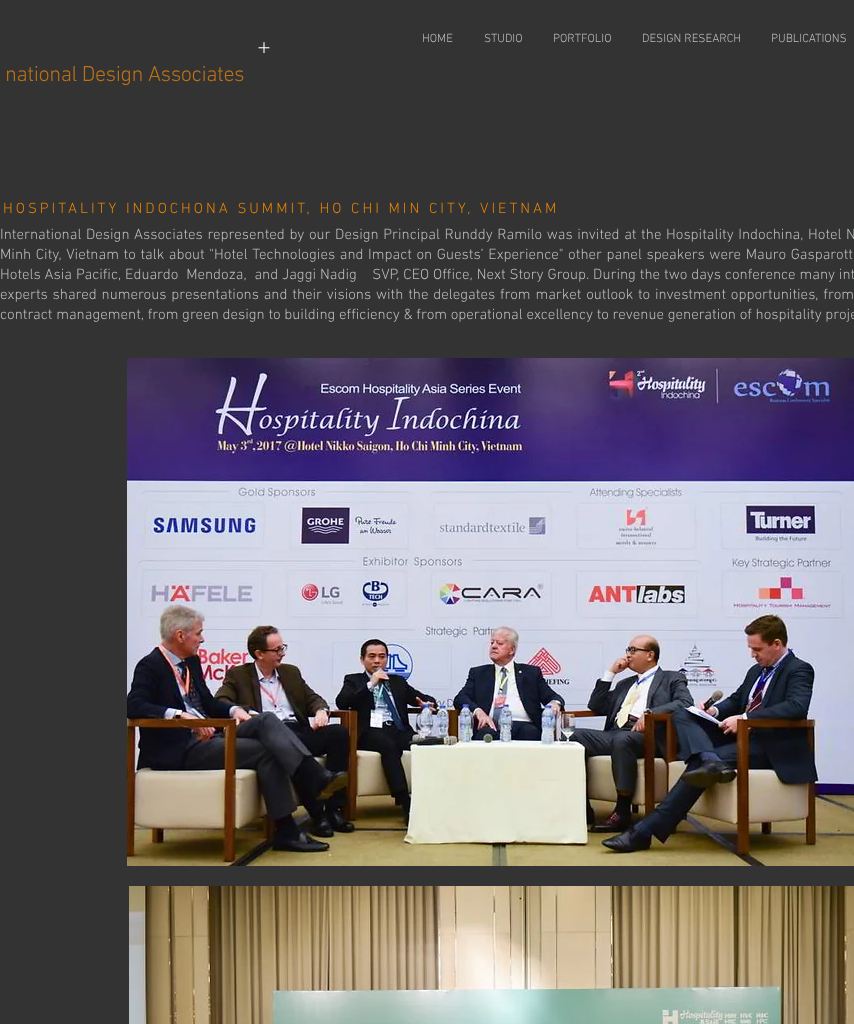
(async () => {
const canvas = document.querySelector("canvas")
canvas.width = 854
canvas.height = 1024
const c = canvas.getContext("2d")
c.miterLimit = 4
c.fontKerning = "normal"
function T(s,x,y){c.fillText(s,x,y)}
function R(x,y,w,h){c.fillRect(x,y,w,h)}
async function I(src,x,y,w,h){const img=new Image();img.src=src;await img.decode();c.drawImage(img,x,y,w,h)}
c.fillStyle="#333"
R(0,0,854,1024)
c.font="300 12px 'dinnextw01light'"
c.fillStyle="#b9bbbd"
T("HOME",422,42)
T("STUDIO",484,42)
T("PORTFOLIO",553,42)
T("DESIGN RESEARCH",642,42)
T("PUBLICATIONS",771,42)
c.font="300 21px 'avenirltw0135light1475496'"
c.fillStyle="#fff"
T("+",257,54)
c.letterSpacing="-0.45px"
c.font="300 22px 'dinnextw01light'"
c.fillStyle="#bb7115"
T("national Design Associates",5,81)
c.letterSpacing="3px"
c.font="300 15px 'dinnextw01light'"
c.fillStyle="#e58305"
T("HOSPITALITY INDOCHONA SUMMIT, HO CHI MIN CITY, VIETNAM",3,213)
c.letterSpacing="0px"
c.wordSpacing="0.9px"
c.fillStyle="#b9bbbd"
T("International Design Associates represented by our Design Principal Runddy Ramilo was invited at the Hospitality Indochina, Hotel N",0,239)
T("Minh City, Vietnam to talk about \"Hotel Technologies and Impact on Guests’ Experience\" other panel speakers were Mauro Gasparotti",0,259)
c.wordSpacing="0.2px"
T("Hotels Asia Pacific, Eduardo  Mendoza,  and Jaggi Nadig    SVP, CEO Office, Next Story Group. During the two days conference many int",0,279)
c.wordSpacing="1.1px"
T("experts shared numerous presentations and their visions with the delegates from market outlook to investment opportunities, from",0,299)
c.wordSpacing="0px"
T("contract management, from green design to building efficiency & from operational excellency to revenue generation of hospitality proje",0,319)
await I("1.png",127,358,727,508)
await I("2.png",129,886,725,138)
})()
